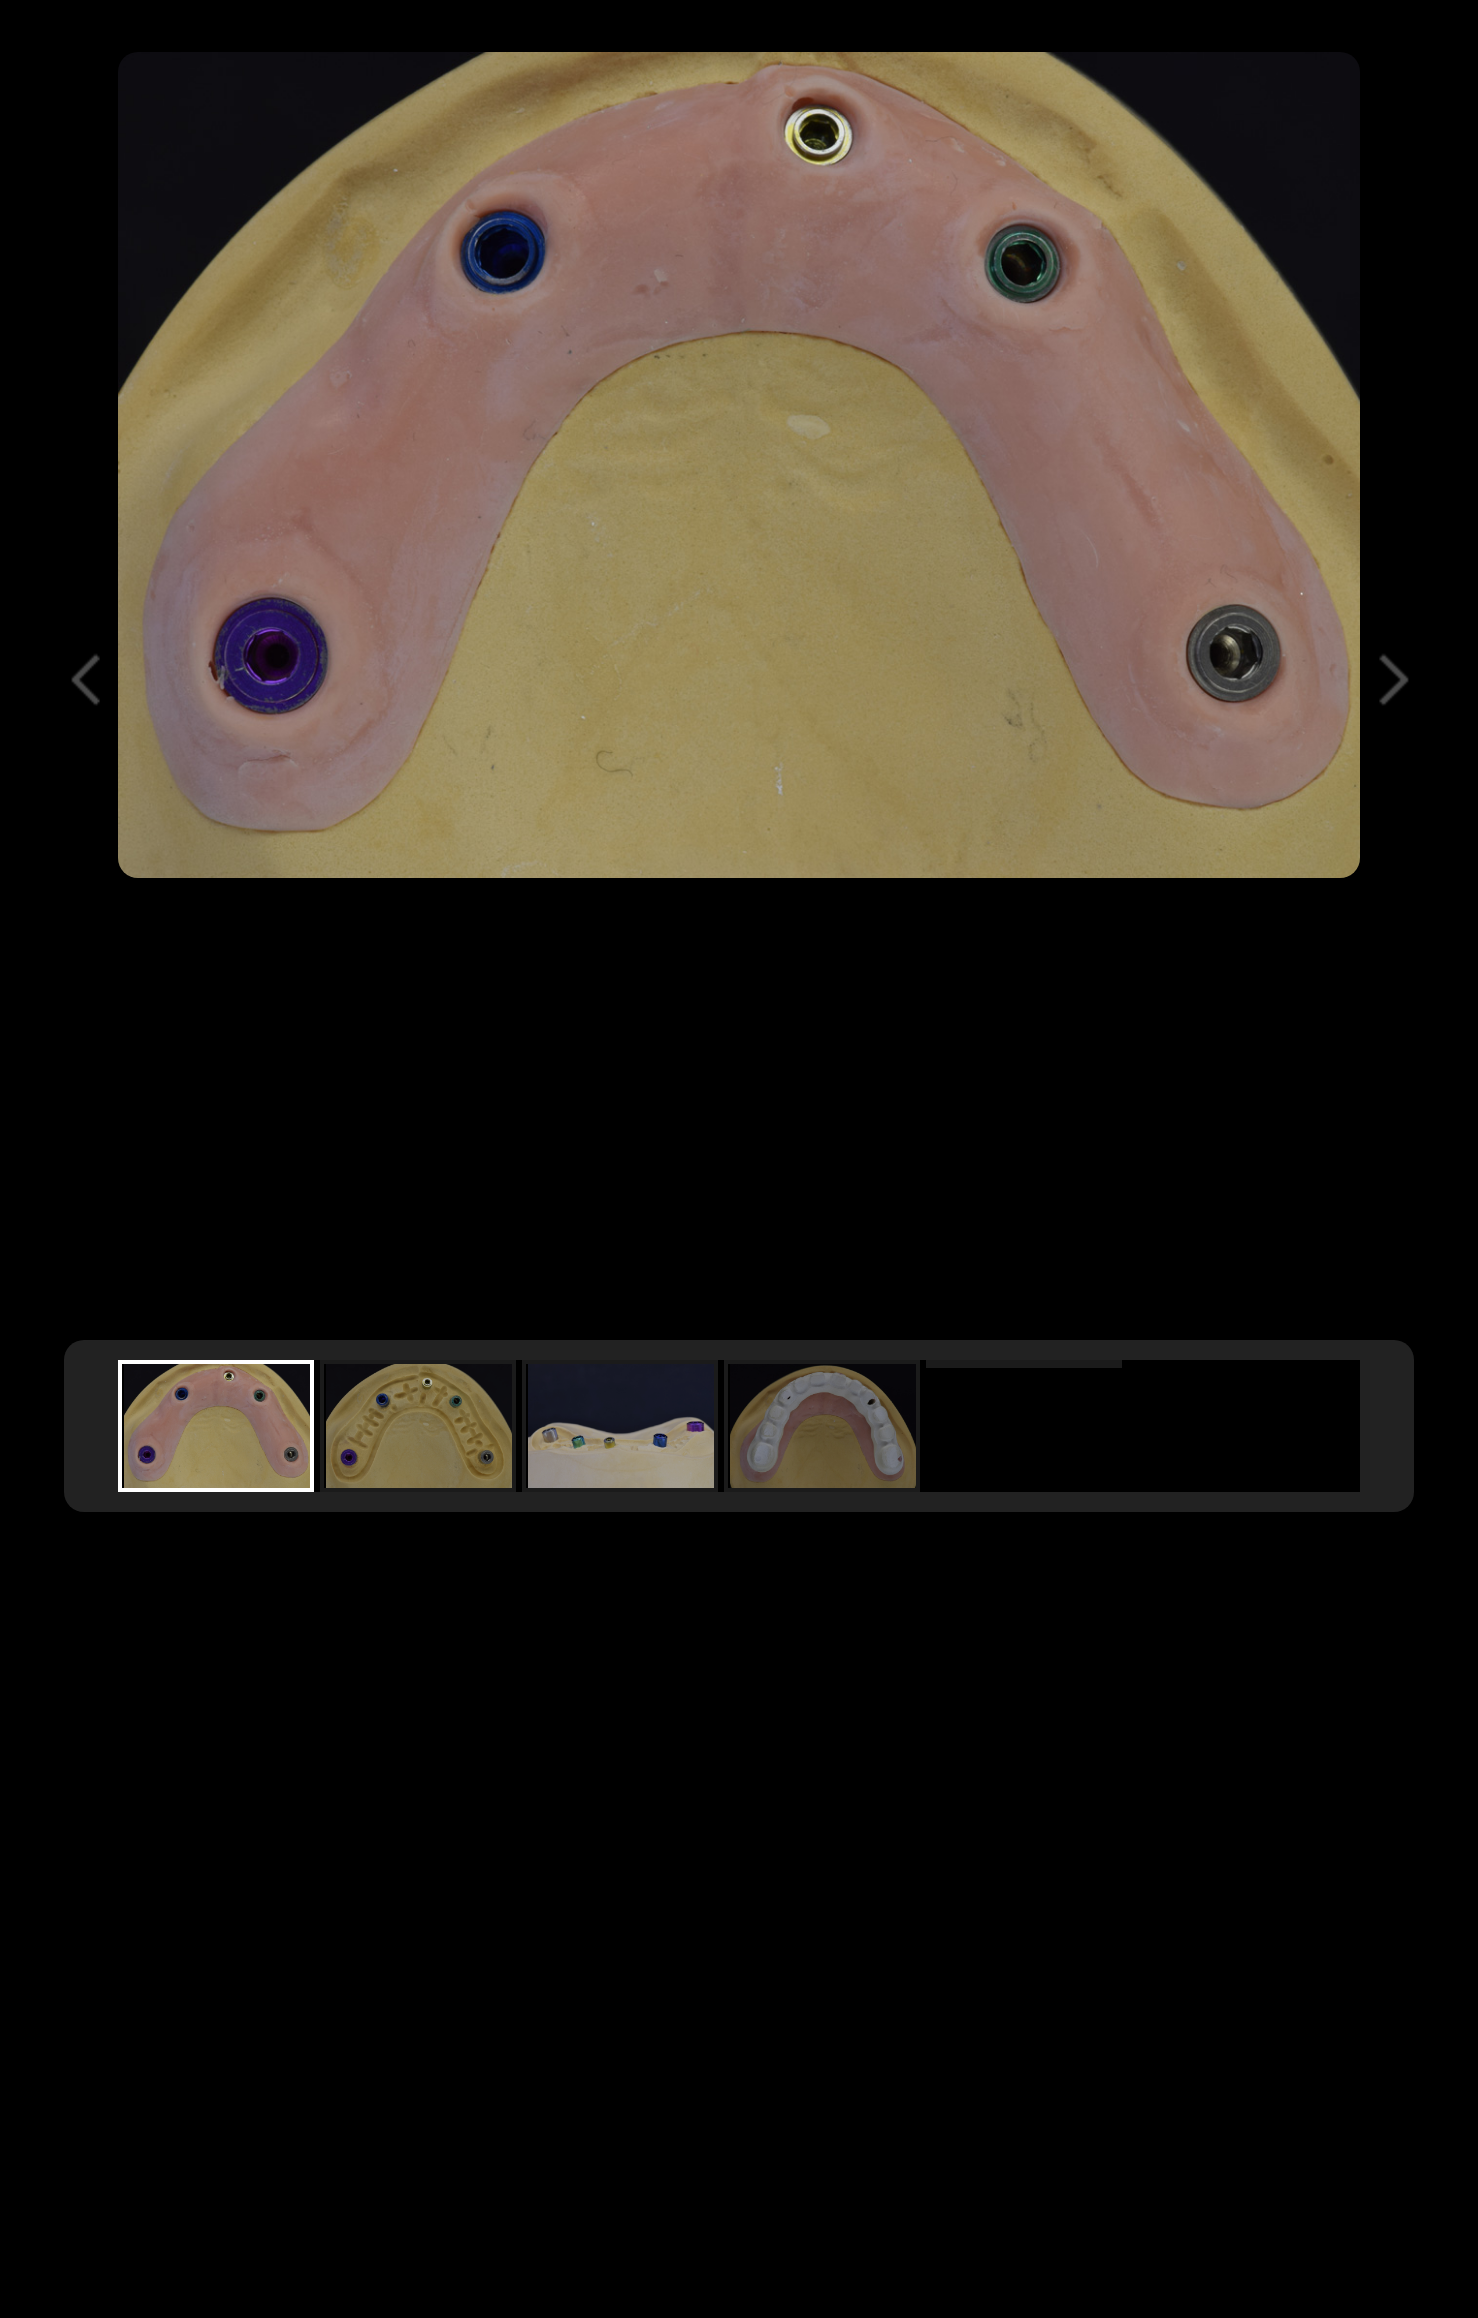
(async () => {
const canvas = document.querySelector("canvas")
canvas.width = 1478
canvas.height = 2318
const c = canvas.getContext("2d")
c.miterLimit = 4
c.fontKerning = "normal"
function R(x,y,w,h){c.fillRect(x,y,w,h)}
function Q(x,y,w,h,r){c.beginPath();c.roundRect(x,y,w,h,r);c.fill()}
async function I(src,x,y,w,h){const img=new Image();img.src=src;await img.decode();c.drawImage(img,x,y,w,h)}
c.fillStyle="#000"
R(0,0,1478,2318)
await I("1.png",118,52,1242,826)
await I("2.png",71,653,29,53)
await I("3.png",1379,653,30,53)
c.fillStyle="#222"
Q(64,1340,1350,172,20)
c.fillStyle="#000"
R(122,1360,1238,132)
c.strokeStyle="#fff"
c.lineWidth=4
c.strokeRect(120,1362,192,128)
await I("4.png",124,1364,186,124)
c.strokeStyle="#1b1b1b"
c.strokeRect(322,1362,192,128)
await I("5.png",326,1364,186,124)
c.strokeRect(524,1362,192,128)
await I("6.png",528,1364,186,124)
c.strokeRect(726,1362,192,128)
await I("7.png",730,1364,186,124)
c.fillStyle="#1b1b1b"
R(926,1360,196,8)
})()
